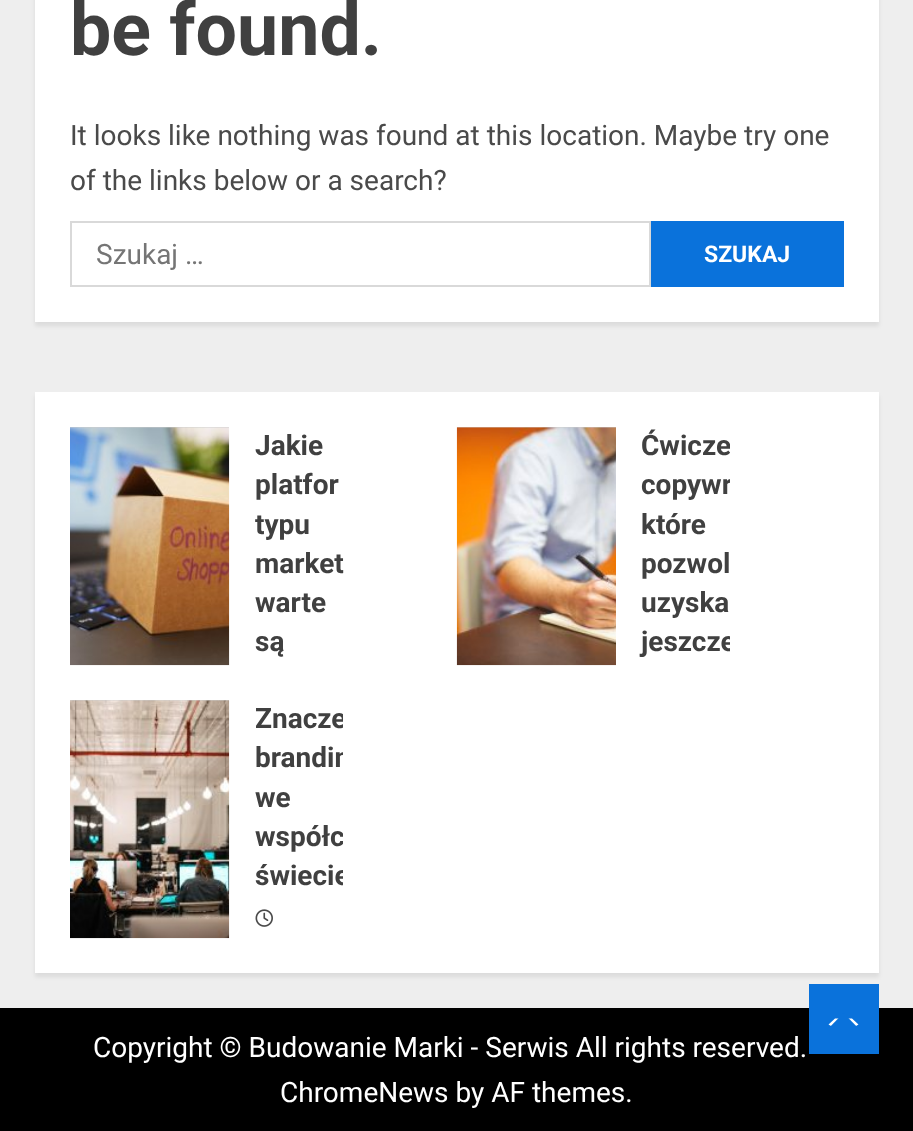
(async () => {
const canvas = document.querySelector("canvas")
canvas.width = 913
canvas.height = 1131
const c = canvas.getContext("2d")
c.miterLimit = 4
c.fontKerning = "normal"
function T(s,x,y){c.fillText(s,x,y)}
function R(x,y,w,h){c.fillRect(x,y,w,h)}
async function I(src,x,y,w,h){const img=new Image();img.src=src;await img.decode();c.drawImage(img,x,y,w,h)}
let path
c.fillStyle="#eee"
R(0,0,913,1131)
c.fillStyle="#00000014"
c.filter="blur(2px)"
c.beginPath()
c.rect(35,-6,844,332)
c.fill()
c.filter="none"
c.fillStyle="#fff"
R(35,0,844,322)
c.font="bold 73.5px Roboto"
c.fillStyle="#404040"
T("be found.",70,55)
c.font="28px Roboto"
c.fillStyle="#4a4a4a"
T("It looks like nothing was found at this location. Maybe try one",70,145)
T("of the links below or a search?",70,190)
c.strokeStyle="#d9d9d9"
c.lineWidth=2
c.strokeRect(71,222,579,64)
c.fillStyle="#757575"
T("Szukaj …",96,264)
c.fillStyle="#0a72db"
R(651,221,193,66)
c.font="bold 23px Roboto"
c.fillStyle="#fff"
T("SZUKAJ",704,262)
c.fillStyle="#00000014"
c.filter="blur(2px)"
c.beginPath()
c.rect(35,396,844,581)
c.fill()
c.filter="none"
c.fillStyle="#fff"
R(35,392,844,581)
c.fillStyle="#ccc"
R(70,427,159,1)
await I("1.png",70,427,160,239)
c.font="bold 28px Roboto"
c.fillStyle="#404040"
T("Jakie",255,455)
T("platfor",255,494)
T("typu",255,534)
T("market",255,573)
T("warte",255,612)
T("są",255,651)
c.fillStyle="#ccc"
R(457,427,159,1)
await I("2.png",456,427,160,239)
c.save()
c.beginPath()
c.rect(616,427,114,238)
c.clip()
c.fillStyle="#404040"
T("Ćwicze",641,455)
T("copywr",641,494)
c.restore()
c.fillStyle="#404040"
T("które",641,534)
T("pozwol",641,573)
T("uzyska",641,612)
c.save()
c.beginPath()
c.rect(616,427,114,238)
c.clip()
T("jeszcze",641,651)
c.restore()
c.fillStyle="#ccc"
R(70,700,159,1)
await I("3.png",70,700,160,239)
c.save()
c.beginPath()
c.rect(229,700,114,238)
c.clip()
c.fillStyle="#404040"
T("Znacze",255,728)
T("brandin",255,767)
c.restore()
c.fillStyle="#404040"
T("we",255,807)
c.save()
c.beginPath()
c.rect(229,700,114,238)
c.clip()
T("współc",255,846)
T("świecie",255,885)
c.restore()
await I("4.png",255,909,18,18)
c.fillStyle="#000"
R(0,1008,913,123)
c.font="28px Roboto"
c.fillStyle="#fff"
T("Copyright © Budowanie Marki - Serwis All rights reserved.",93,1057)
T("ChromeNews by AF themes.",280,1102)
c.fillStyle="#0a72db"
R(809,984,70,70)
c.fillStyle="#fff"
path = new Path2D("M858.5 1024.5c-4 3.5-10.5 2.5-15 2.5c-4.5 0-11 1-15-2.5l6.5-6h17z")
c.fill(path)
c.fillStyle="#0a72db"
path = new Path2D("M861 1031h-35l17.5-18z")
c.fill(path)
})()
